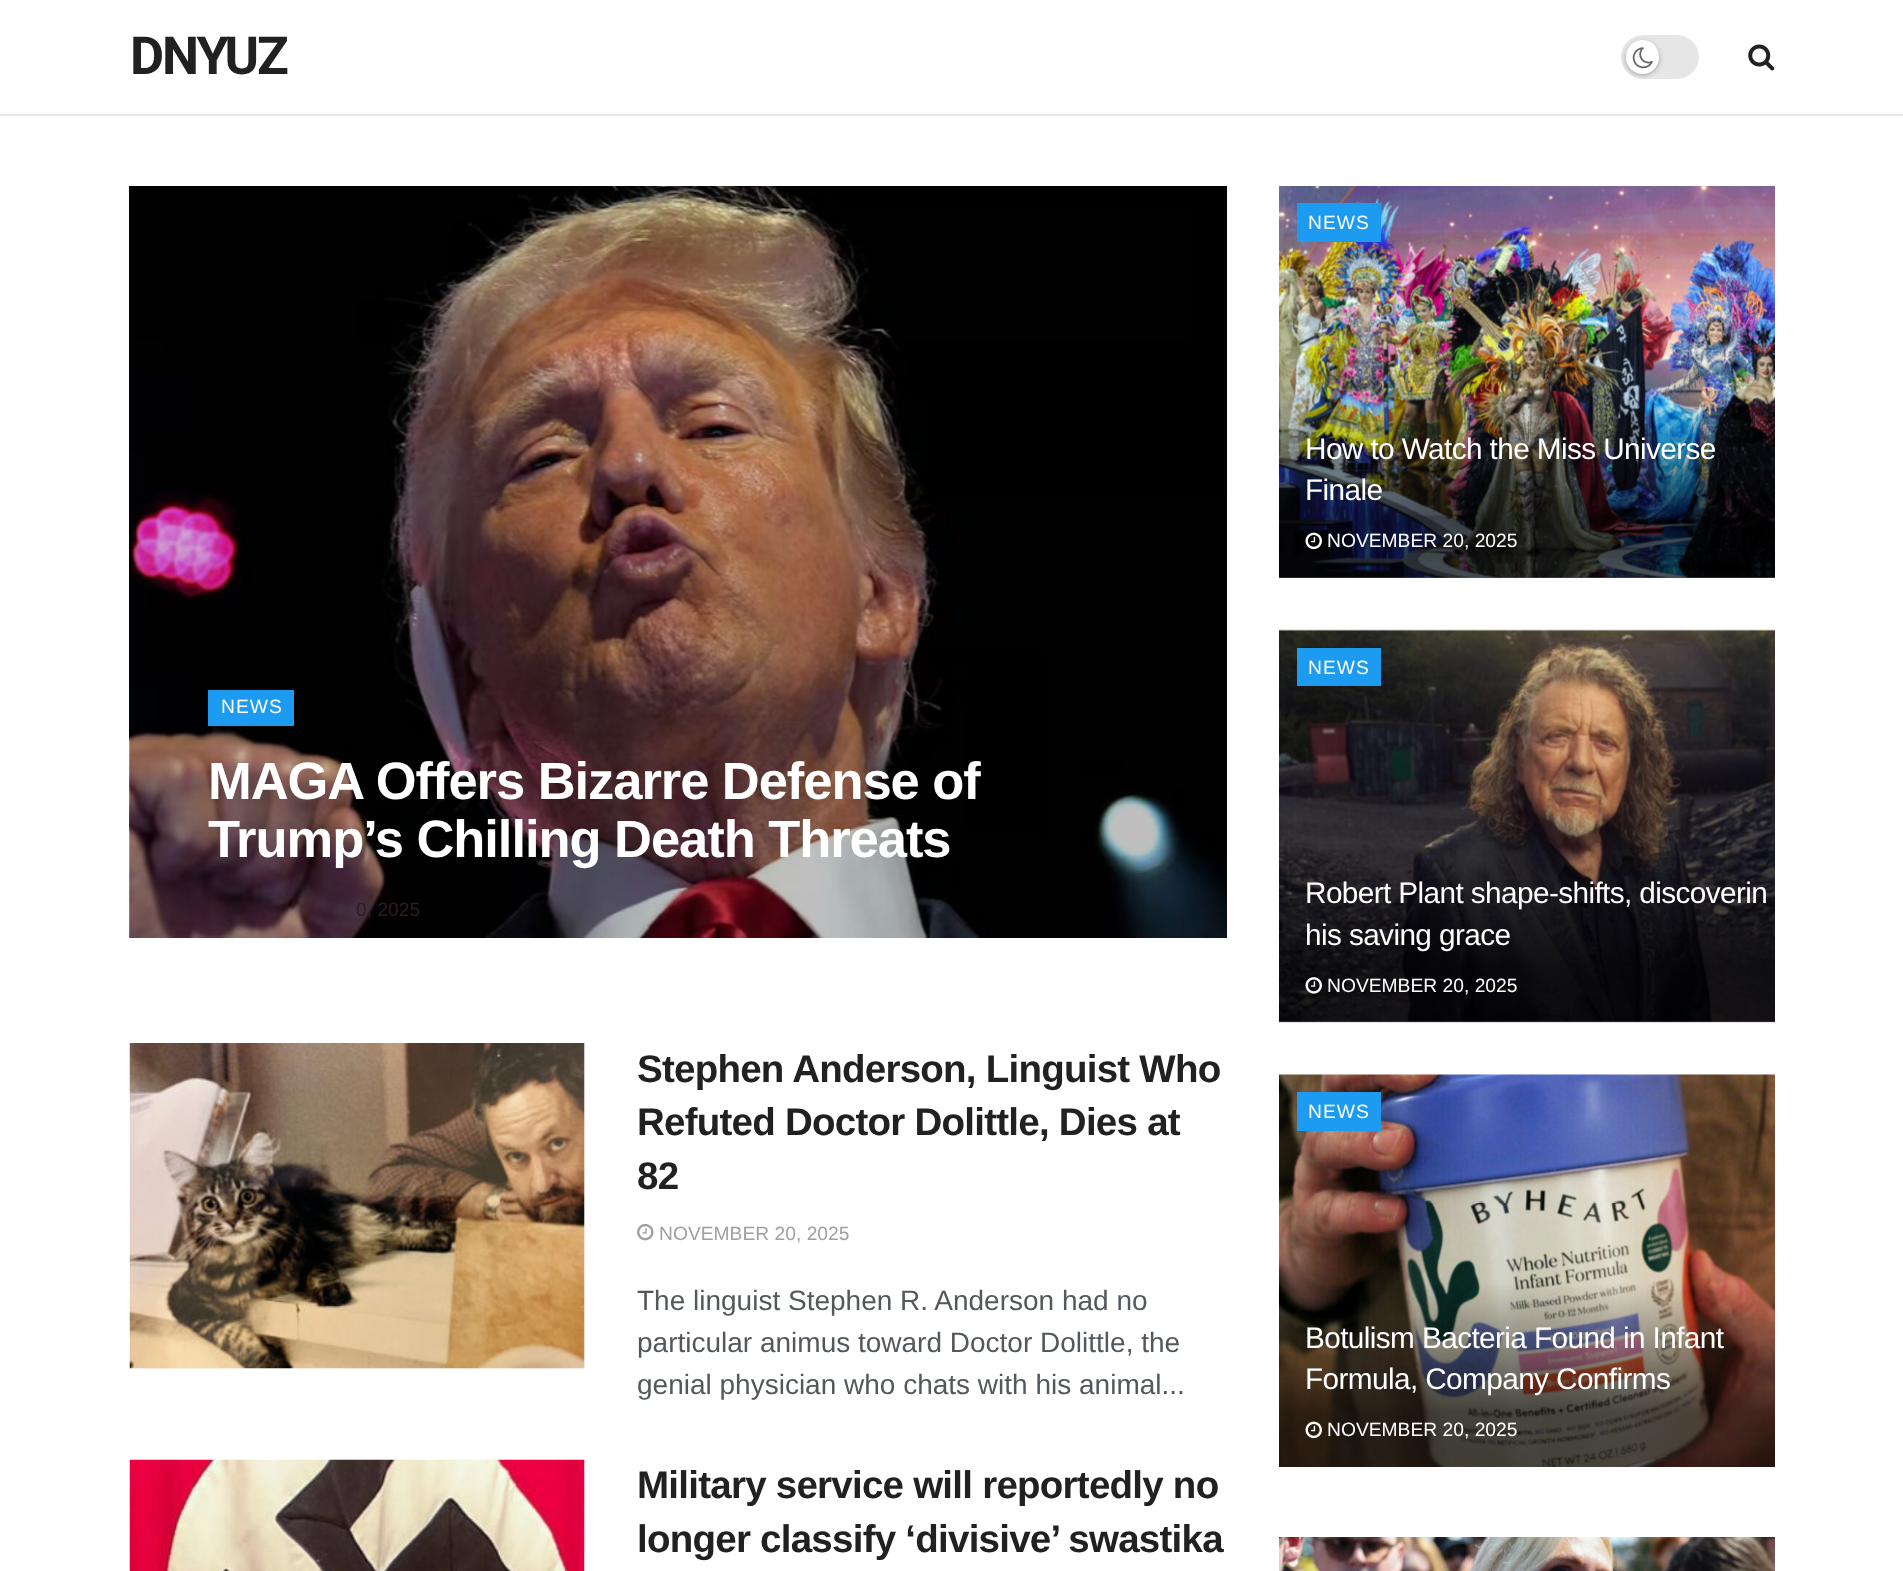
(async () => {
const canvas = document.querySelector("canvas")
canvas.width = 1903
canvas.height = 1571
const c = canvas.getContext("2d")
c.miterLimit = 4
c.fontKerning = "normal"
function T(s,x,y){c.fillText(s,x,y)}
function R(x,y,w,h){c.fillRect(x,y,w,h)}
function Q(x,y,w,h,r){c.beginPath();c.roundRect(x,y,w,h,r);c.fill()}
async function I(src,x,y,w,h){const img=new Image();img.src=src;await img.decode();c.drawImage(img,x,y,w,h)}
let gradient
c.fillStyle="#fff"
R(0,0,1903,1571)
c.fillStyle="#e8e8e8"
R(0,114,1903,2)
c.letterSpacing="-2px"
c.font="bold 52.5px Roboto"
c.fillStyle="#212121"
T("DNYUZ",130,74)
c.fillStyle="#e6e6e6"
Q(1621,35,78,44,22)
c.fillStyle="#0000004d"
c.filter="blur(2.5px)"
c.beginPath()
c.roundRect(1626,42,33,33,16.5)
c.fill()
c.filter="none"
c.fillStyle="#fff"
Q(1626,40,33,34,16.5)
await I("1.png",1632,47,21,22)
await I("2.png",1748,44,27,27)
await I("3.png",129,186,1098,752)
c.fillStyle="#1d9bf0"
R(208,690,86,36)
c.letterSpacing="1px"
c.font="19.25px Liberation Sans"
c.fillStyle="#fff"
T("NEWS",221,713)
c.letterSpacing="-1.05px"
c.font="bold 52.5px Liberation Sans"
T("MAGA Offers Bizarre Defense of",208,799)
T("Trump’s Chilling Death Threats",208,857)
c.letterSpacing="0px"
c.font="19.25px Liberation Sans"
c.fillStyle="#2e1c25"
T("0, 2025",356,916)
c.fillStyle="#f7f7f7"
R(130,1043,455,326)
await I("4.png",129,1043,456,326)
c.letterSpacing="-0.75px"
c.font="bold 38.5px Liberation Sans"
c.fillStyle="#212121"
T("Stephen Anderson, Linguist Who",637,1082)
T("Refuted Doctor Dolittle, Dies at",637,1135)
T("82",637,1189)
await I("5.png",637,1223,17,18)
c.letterSpacing="0px"
c.font="19.25px Liberation Sans"
c.fillStyle="#a0a0a0"
T("NOVEMBER 20, 2025",659,1240)
c.font="28px Liberation Sans"
c.fillStyle="#53585c"
T("The linguist Stephen R. Anderson had no",637,1310)
T("particular animus toward Doctor Dolittle, the",637,1352)
T("genial physician who chats with his animal...",637,1394)
c.fillStyle="#f7f7f7"
R(584,1460,1,111)
await I("7.png",444,1459,90,1)
await I("6.png",129,1459,456,112)
c.letterSpacing="-0.75px"
c.font="bold 38.5px Liberation Sans"
c.fillStyle="#212121"
T("Military service will reportedly no",637,1498)
T("longer classify ‘divisive’ swastika",637,1552)
c.fillStyle="#f7f7f7"
R(1279,577,496,1)
await I("9.png",1659,577,107,1)
await I("8.png",1279,186,496,392)
c.fillStyle="#1d9bf0"
R(1297,203,84,39)
c.letterSpacing="1px"
c.font="19.25px Liberation Sans"
c.fillStyle="#fff"
T("NEWS",1308,229)
gradient = c.createLinearGradient(1553,394,1553,578)
gradient.addColorStop(0,"#00000000")
gradient.addColorStop(.7,"#000000a6")
c.fillStyle = gradient
R(1279,398,496,180)
c.letterSpacing="-0.6px"
c.font="29.75px Liberation Sans"
c.fillStyle="#fff"
T("How to Watch the Miss Universe",1305,459)
T("Finale",1305,500)
await I("10.png",1305,532,17,18)
c.letterSpacing="0px"
c.font="19.25px Liberation Sans"
T("NOVEMBER 20, 2025",1327,547)
c.fillStyle="#f7f7f7"
R(1279,630,496,392)
await I("12.png",1659,630,107,392)
await I("11.png",1279,629,496,394)
c.fillStyle="#1d9bf0"
R(1297,648,84,38)
c.letterSpacing="1px"
c.fillStyle="#fff"
T("NEWS",1308,674)
gradient = c.createLinearGradient(1553,838,1553,1022)
gradient.addColorStop(0,"#00000000")
gradient.addColorStop(.7,"#000000a6")
c.fillStyle = gradient
R(1279,843,496,179)
c.letterSpacing="-0.6px"
c.font="29.75px Liberation Sans"
c.fillStyle="#fff"
T("Robert Plant shape-shifts, discoverin",1305,903)
T("his saving grace",1305,945)
await I("13.png",1305,977,17,17)
c.letterSpacing="0px"
c.font="19.25px Liberation Sans"
T("NOVEMBER 20, 2025",1327,992)
await I("15.png",1635,1074,140,1)
await I("14.png",1279,1074,496,393)
c.fillStyle="#1d9bf0"
R(1297,1092,84,39)
c.letterSpacing="1px"
c.fillStyle="#fff"
T("NEWS",1308,1118)
c.letterSpacing="-0.6px"
c.font="29.75px Liberation Sans"
T("Botulism Bacteria Found in Infant",1305,1348)
T("Formula, Company Confirms",1305,1389)
await I("16.png",1305,1421,17,18)
c.letterSpacing="0px"
c.font="19.25px Liberation Sans"
T("NOVEMBER 20, 2025",1327,1436)
await I("17.png",1279,1537,496,34)
})()
